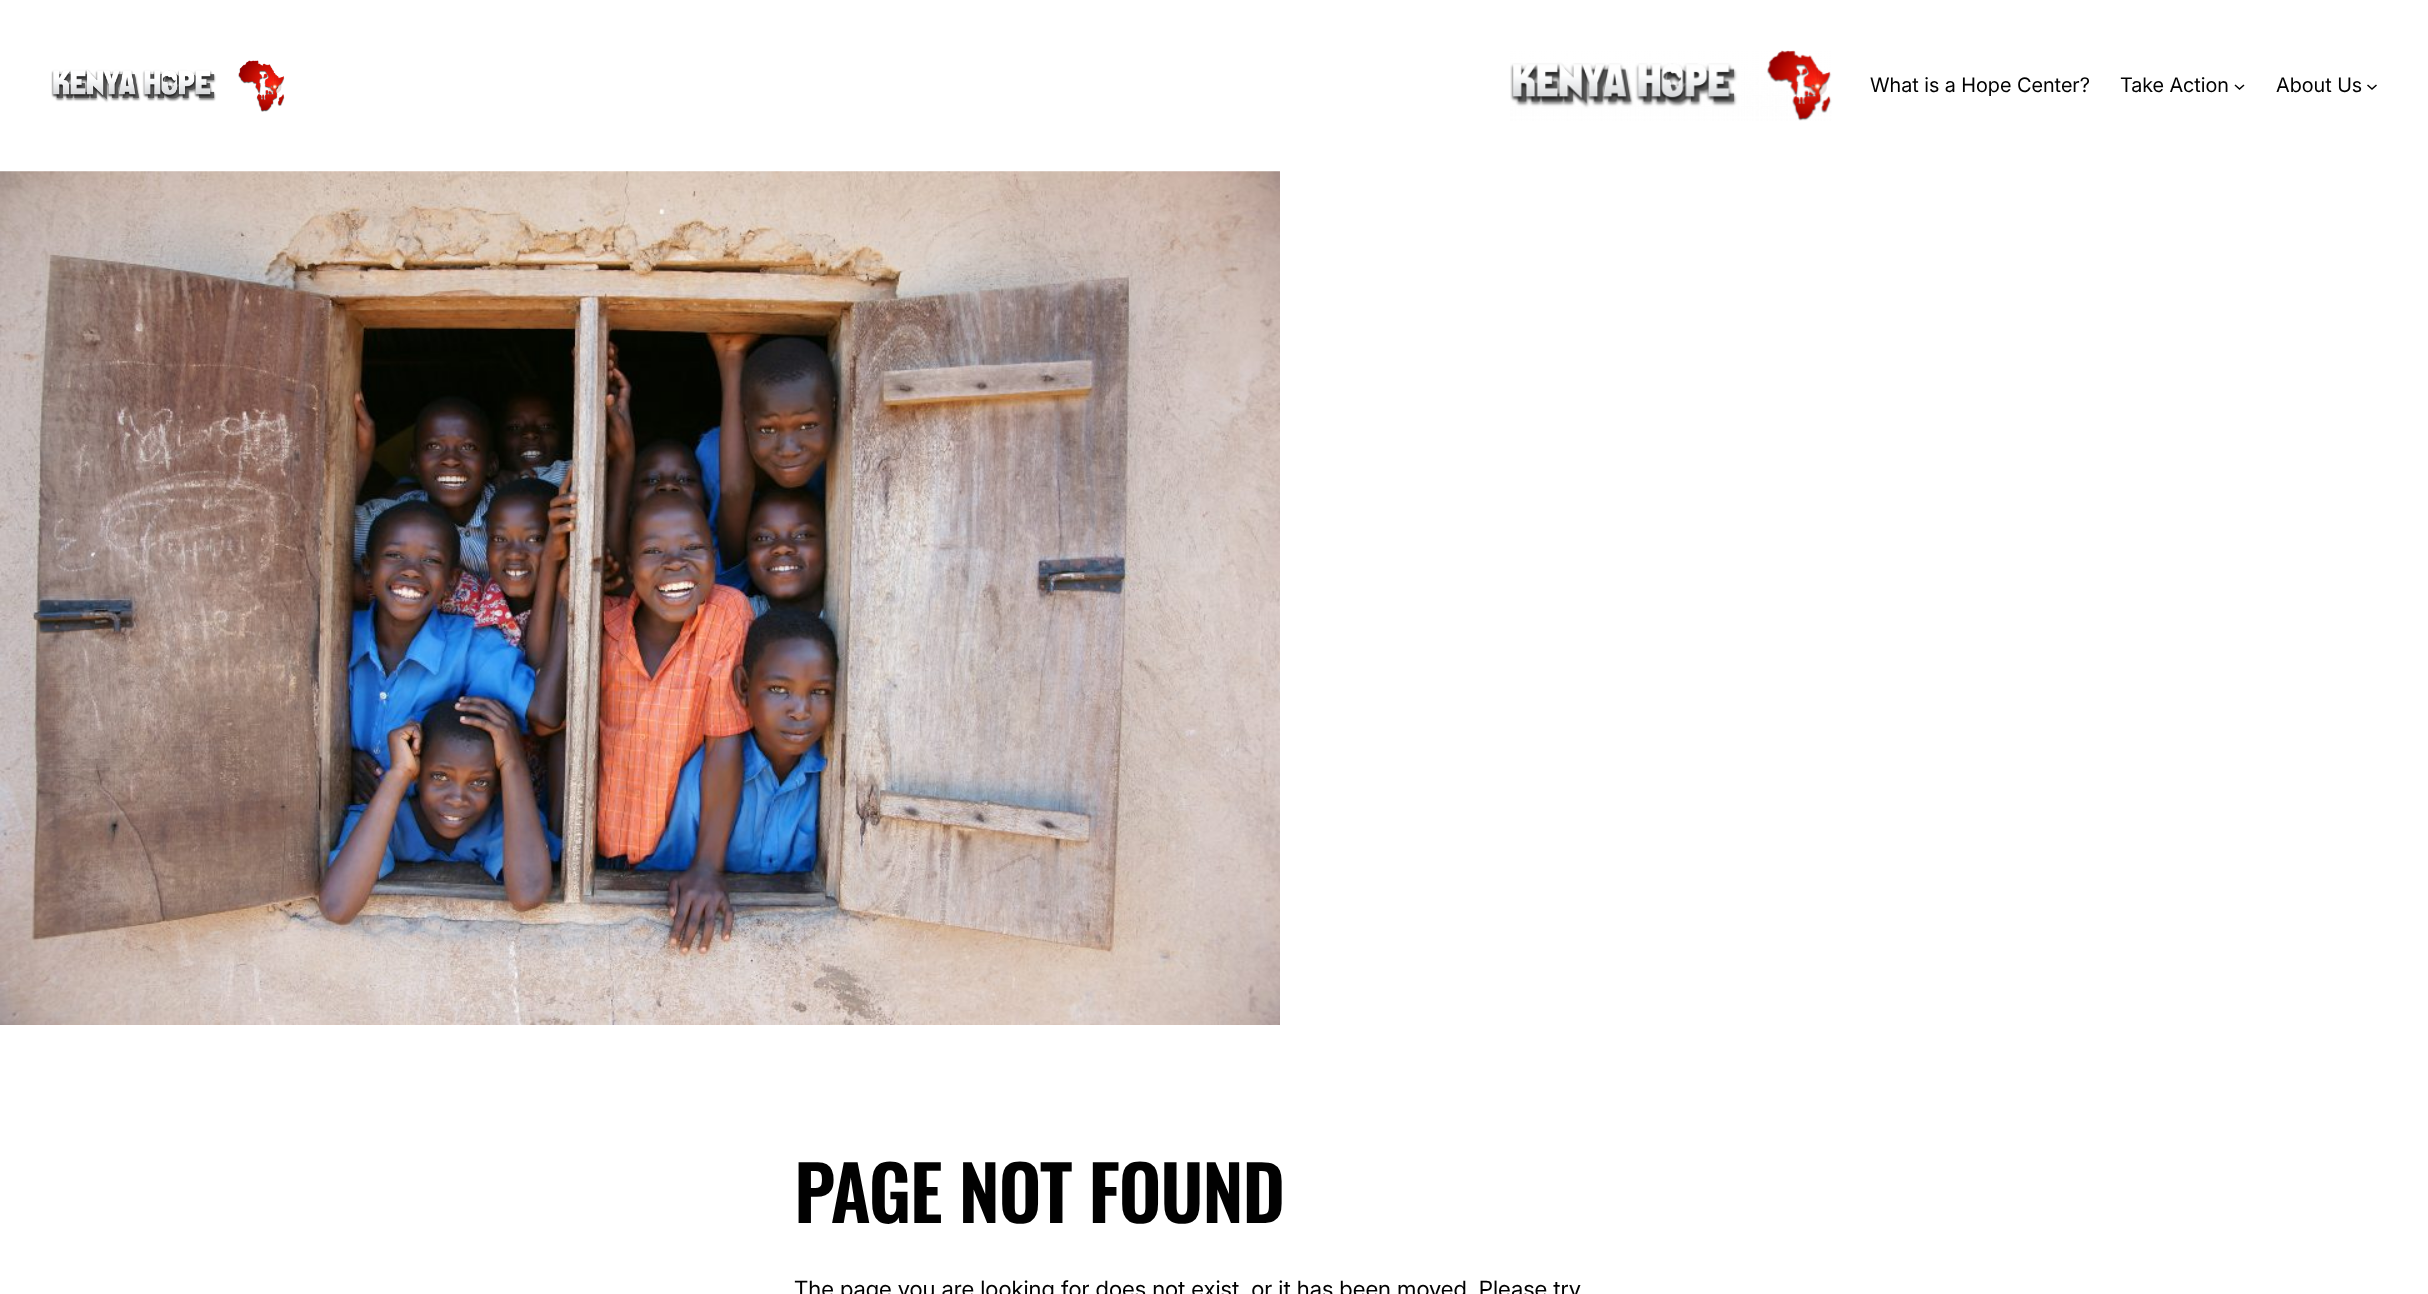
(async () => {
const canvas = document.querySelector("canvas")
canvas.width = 2428
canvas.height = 1294
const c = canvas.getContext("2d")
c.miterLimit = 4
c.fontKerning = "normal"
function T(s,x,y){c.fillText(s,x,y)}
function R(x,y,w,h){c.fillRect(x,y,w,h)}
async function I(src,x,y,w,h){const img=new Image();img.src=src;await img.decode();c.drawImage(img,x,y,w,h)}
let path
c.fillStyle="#fff"
R(0,0,2428,1294)
await I("1.png",51,60,234,52)
await I("2.png",1510,50,322,71)
c.font="20px Inter"
c.fillStyle="#010101"
T("What is a Hope Center?",1870,92)
T("Take Action",2120,92)
path = new Path2D("M2235 85l4.5 4l4.5-4")
c.strokeStyle="#010101"
c.lineWidth=1.5
c.stroke(path)
T("About Us",2276,92)
path = new Path2D("M2367.5 85l4.5 4l4.5-4")
c.stroke(path)
await I("3.png",0,171,1280,854)
c.letterSpacing="-1.5px"
c.font="600 75px Oswald"
T("PAGE NOT FOUND",794,1223)
c.letterSpacing="0px"
c.font="22.5px 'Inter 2'"
T("The page you are looking for does not exist, or it has been moved. Please try",794,1297)
})()
